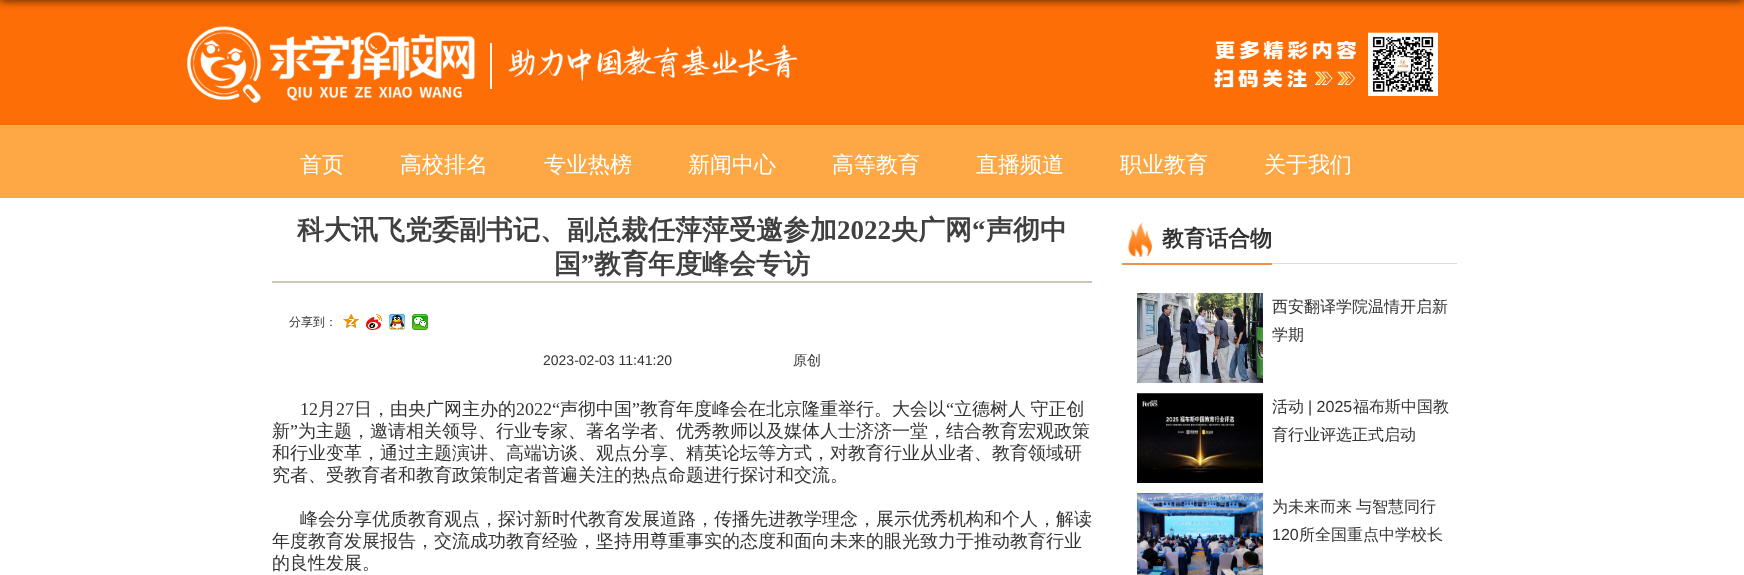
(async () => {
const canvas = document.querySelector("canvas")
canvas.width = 1744
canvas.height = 575
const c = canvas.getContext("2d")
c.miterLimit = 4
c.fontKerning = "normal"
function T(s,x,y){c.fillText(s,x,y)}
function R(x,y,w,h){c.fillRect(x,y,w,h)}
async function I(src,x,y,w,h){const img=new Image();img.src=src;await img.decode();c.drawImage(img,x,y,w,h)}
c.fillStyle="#fff"
R(0,0,1744,575)
c.fillStyle="#fd6e06"
R(0,0,1744,125)
await I("1.png",490,43,2,46)
await I("2.png",187,26,288,77)
await I("3.png",508,44,290,38)
await I("4.png",1213,32,225,64)
c.fillStyle="#000000cc"
c.filter="blur(5px)"
c.beginPath()
c.rect(0,-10,1744,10)
c.fill()
c.filter="none"
c.fillStyle="#fda844"
R(0,125,1744,73)
c.font="500 22px WenQuanYi Zen Hei"
c.fillStyle="#fff"
T("首页",300,172)
T("高校排名",400,172)
T("专业热榜",544,172)
T("新闻中心",688,172)
T("高等教育",832,172)
T("直播频道",976,172)
T("职业教育",1120,172)
T("关于我们",1264,172)
c.fillStyle="#cbc7bb"
R(272,281,820,2)
c.font="bold 27px WenQuanYi Zen Hei"
c.fillStyle="#404040"
T("科大讯飞党委副书记、副总裁任萍萍受邀参加",297,239)
c.font="bold 27px Liberation Serif"
T("2022",837,239)
c.font="bold 27px WenQuanYi Zen Hei"
T("央广网",891,239)
c.font="bold 27px Liberation Serif"
T("“",972,239)
c.font="bold 27px WenQuanYi Zen Hei"
T("声彻中",986,239)
T("国",554,273)
c.font="bold 27px Liberation Serif"
T("”",581,273)
c.font="bold 27px WenQuanYi Zen Hei"
T("教育年度峰会专访",594,273)
c.font="500 12px WenQuanYi Zen Hei"
c.fillStyle="#333"
T("分享到：",289,326)
await I("5.png",343,314,16,14)
await I("6.png",366,314,16,16)
await I("7.png",389,314,16,16)
await I("8.png",412,314,16,16)
c.font="14px Liberation Sans"
T("2023-02-03 11:41:20",543,365)
c.font="500 14px WenQuanYi Zen Hei"
T("原创",793,365)
c.font="18px Liberation Serif"
T("12",300,415)
c.font="500 18px WenQuanYi Zen Hei"
T("月",318,415)
c.font="18px Liberation Serif"
T("27",336,415)
c.font="500 18px WenQuanYi Zen Hei"
T("日，由央广网主办的",354,415)
c.font="18px Liberation Serif"
T("2022“",516,415)
c.font="500 18px WenQuanYi Zen Hei"
T("声彻中国",560,415)
c.font="18px Liberation Serif"
T("”",632,415)
c.font="500 18px WenQuanYi Zen Hei"
T("教育年度峰会在北京隆重举行。大会以",640,415)
c.font="18px Liberation Serif"
T("“",946,415)
c.wordSpacing="-1px"
c.font="500 18px WenQuanYi Zen Hei"
T("立德树人 守正创",954,415)
c.wordSpacing="0px"
T("新",272,437)
c.font="18px Liberation Serif"
T("”",290,437)
c.font="500 18px WenQuanYi Zen Hei"
T("为主题，邀请相关领导、行业专家、著名学者、优秀教师以及媒体人士济济一堂，结合教育宏观政策",298,437)
T("和行业变革，通过主题演讲、高端访谈、观点分享、精英论坛等方式，对教育行业从业者、教育领域研",272,459)
T("究者、受教育者和教育政策制定者普遍关注的热点命题进行探讨和交流。",272,481)
T("峰会分享优质教育观点，探讨新时代教育发展道路，传播先进教学理念，展示优秀机构和个人，解读",300,525)
T("年度教育发展报告，交流成功教育经验，坚持用尊重事实的态度和面向未来的眼光致力于推动教育行业",272,547)
T("的良性发展。",272,569)
c.fillStyle="#dcdcdc"
R(1272,263,185,1)
await I("9.png",1128,222,24,35)
c.fillStyle="#f19149"
R(1122,263,150,2)
c.font="bold 22px WenQuanYi Zen Hei"
c.fillStyle="#333"
T("教育话合物",1162,246)
await I("10.png",1137,293,126,90)
c.font="500 16px WenQuanYi Zen Hei"
T("西安翻译学院温情开启新",1272,312)
T("学期",1272,340)
await I("11.png",1137,393,126,90)
T("活动",1272,412)
c.font="16px Liberation Sans"
T("| 2025",1308,412)
c.font="500 16px WenQuanYi Zen Hei"
T("福布斯中国教",1353,412)
T("育行业评选正式启动",1272,440)
await I("12.png",1137,493,126,82)
T("为未来而来",1272,512)
T("与智慧同行",1356,512)
c.font="16px Liberation Sans"
T("120",1272,540)
c.font="500 16px WenQuanYi Zen Hei"
T("所全国重点中学校长",1299,540)
})()
